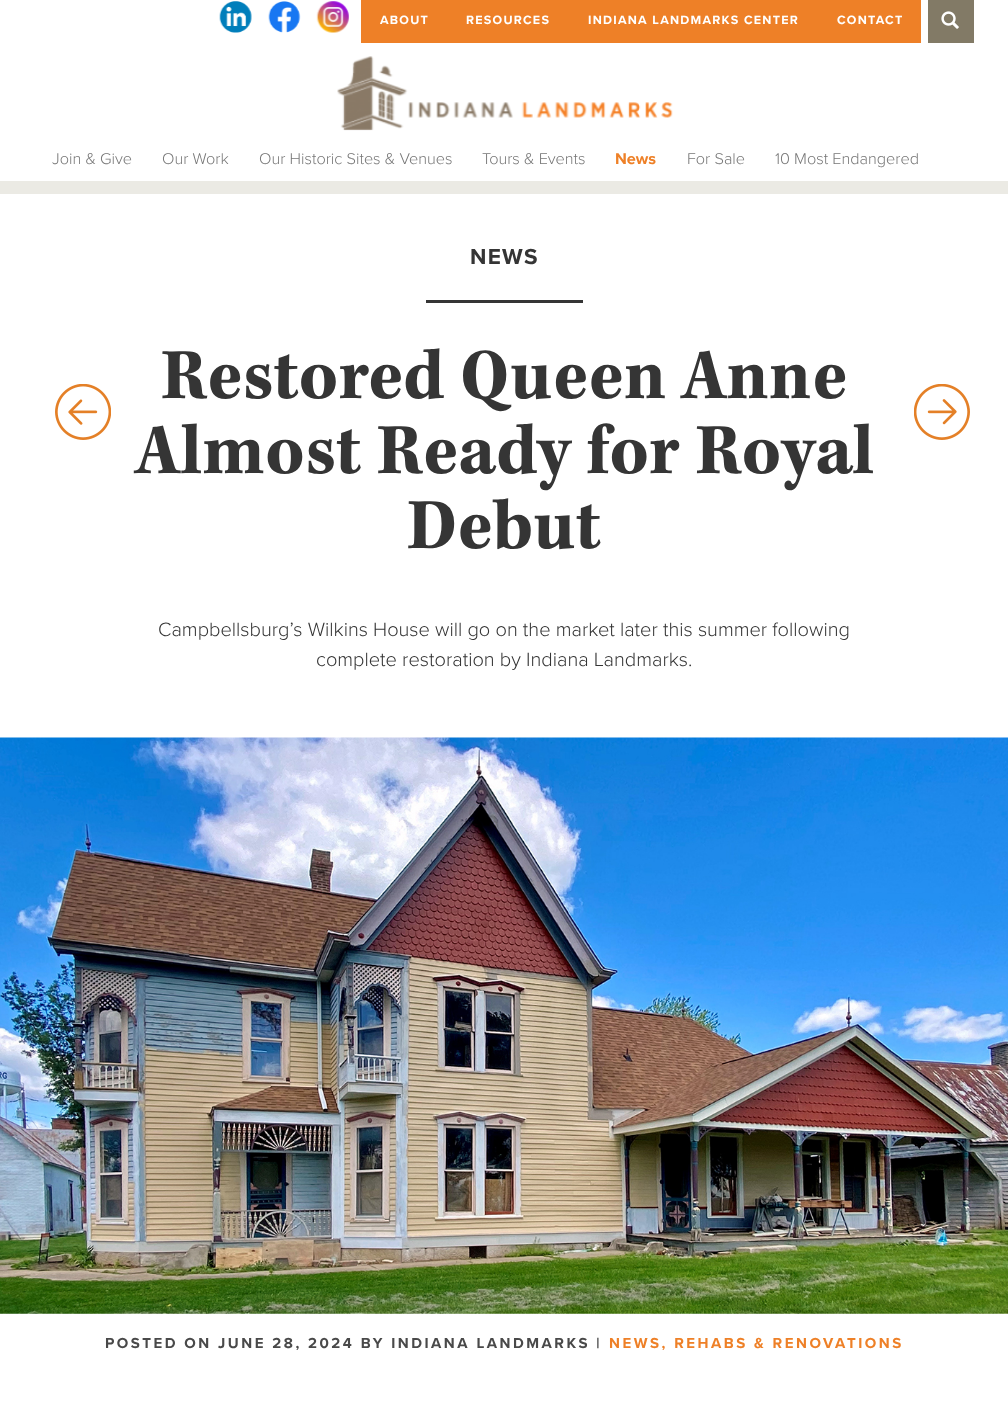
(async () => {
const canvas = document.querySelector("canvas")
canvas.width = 1008
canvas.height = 1408
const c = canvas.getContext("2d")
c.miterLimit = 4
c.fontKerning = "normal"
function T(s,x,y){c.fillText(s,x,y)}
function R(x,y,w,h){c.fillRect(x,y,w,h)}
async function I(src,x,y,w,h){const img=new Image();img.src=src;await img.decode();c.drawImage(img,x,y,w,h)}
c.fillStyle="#fff"
R(0,0,1008,1408)
c.fillStyle="#ebeae4"
R(0,181,1008,13)
await I("1.png",219,1,33,32)
await I("2.png",268,1,33,32)
await I("3.png",316,1,33,32)
c.fillStyle="#ee8027"
R(361,0,560,43)
c.letterSpacing="1.25px"
c.font="bold 12.5px Proxima Nova"
c.fillStyle="#fff"
T("ABOUT",380,24)
T("RESOURCES",466,24)
T("INDIANA LANDMARKS CENTER",588,24)
T("CONTACT",837,24)
c.fillStyle="#827a66"
R(928,0,46,43)
await I("4.png",941,11,18,18)
await I("5.png",337,56,336,75)
c.letterSpacing="0px"
c.font="300 16.25px Proxima Nova"
c.fillStyle="#777"
T("Join & Give",52,164)
T("Our Work",162,164)
T("Our Historic Sites & Venues",259,164)
T("Tours & Events",482,164)
c.font="bold 16.25px Proxima Nova"
c.fillStyle="#ee8027"
T("News",615,164)
c.font="300 16.25px Proxima Nova"
c.fillStyle="#777"
T("For Sale",687,164)
T("10 Most Endangered",775,164)
c.letterSpacing="1.25px"
c.font="bold 22.5px Proxima Nova"
c.fillStyle="#353535"
T("NEWS",470,264)
R(426,300,157,3)
await I("6.png",55,384,56,56)
c.letterSpacing="0px"
c.font="bold 75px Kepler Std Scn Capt"
T("Restored Queen Anne",161,398)
T("Almost Ready for Royal",135,473)
T("Debut",407,548)
c.font="300 20px Proxima Nova"
T("Campbellsburg’s Wilkins House will go on the market later this summer following",158,636)
T("complete restoration by Indiana Landmarks.",316,666)
await I("7.png",914,384,56,56)
await I("8.png",0,737,1008,577)
c.letterSpacing="2.5px"
c.font="bold 15px Proxima Nova"
c.fillStyle="#494949"
T("POSTED ON JUNE 28, 2024 BY INDIANA LANDMARKS |",105,1348)
c.fillStyle="#ee8027"
T("NEWS, REHABS & RENOVATIONS",609,1348)
})()
